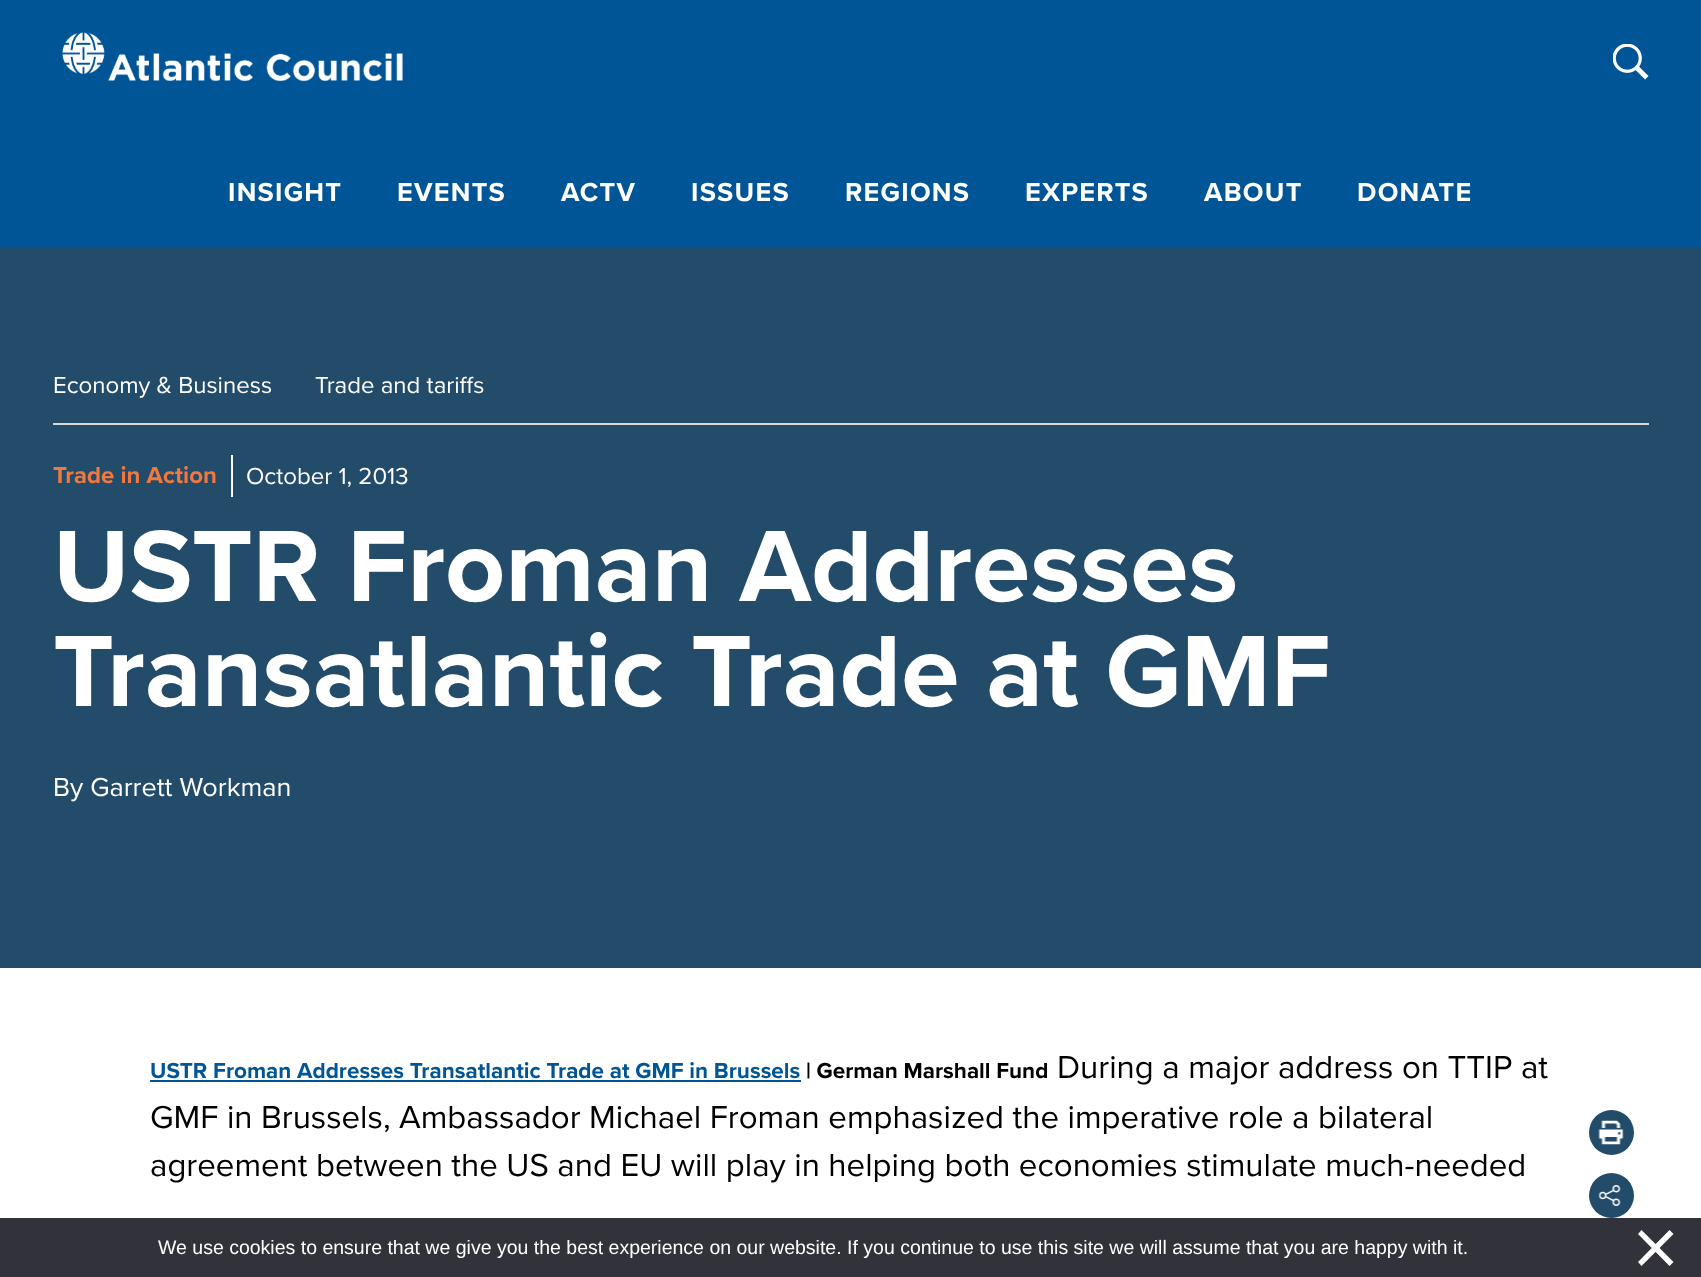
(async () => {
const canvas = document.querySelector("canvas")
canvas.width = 1701
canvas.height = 1277
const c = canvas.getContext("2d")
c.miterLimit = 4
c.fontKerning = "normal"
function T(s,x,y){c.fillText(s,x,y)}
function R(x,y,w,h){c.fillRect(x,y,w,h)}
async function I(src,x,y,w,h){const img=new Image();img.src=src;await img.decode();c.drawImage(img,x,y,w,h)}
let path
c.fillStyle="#fff"
R(0,0,1701,1277)
c.fillStyle="#005596"
R(0,0,1701,248)
await I("1.png",62,32,341,50)
await I("2.png",1613,44,36,36)
c.letterSpacing="1.25px"
c.font="bold 27px Proxima Nova"
c.fillStyle="#fff"
T("INSIGHT",228,201)
T("EVENTS",397,201)
T("ACTV",561,201)
T("ISSUES",691,201)
T("REGIONS",845,201)
T("EXPERTS",1025,201)
T("ABOUT",1204,201)
T("DONATE",1357,201)
c.fillStyle="#234c6a"
R(0,248,1701,720)
c.fillStyle="#d8d8d8"
R(53,423,1596,2)
c.letterSpacing="0px"
c.font="24px Proxima Nova"
c.fillStyle="#fff"
T("Economy & Business",53,393)
T("Trade and tariffs",315,393)
c.font="bold 24px Proxima Nova"
c.fillStyle="#f2783e"
T("Trade in Action",53,483)
c.fillStyle="#fff"
R(231,455,2,42)
c.font="24px Proxima Nova"
T("October 1, 2013",246,484)
c.font="bold 105px Proxima Nova"
T("USTR Froman Addresses",53,601)
T("Transatlantic Trade at GMF",53,706)
c.font="27px Proxima Nova"
T("By Garrett Workman",53,796)
c.font="bold 22.5px Proxima Nova"
c.fillStyle="#005596"
T("USTR Froman Addresses Transatlantic Trade at GMF in Brussels",150,1078)
R(150,1080,651,2)
c.fillStyle="#000"
T("| German Marshall Fund",806,1078)
c.font="33px Proxima Nova"
T("During a major address on TTIP at",1057,1078)
T("GMF in Brussels, Ambassador Michael Froman emphasized the imperative role a bilateral",150,1128)
T("agreement between the US and EU will play in helping both economies stimulate much-needed",150,1176)
c.fillStyle="#234c6a"
c.beginPath()
c.arc(1611.5,1132.5,22.5,0,7)
c.fill()
await I("3.png",1598,1120,26,25)
c.beginPath()
c.arc(1611.5,1195.5,22.5,0,7)
c.fill()
await I("4.png",1598,1185,23,21)
c.fillStyle="#32323a"
R(0,1218,1701,59)
c.font="19.5px Liberation Sans"
c.fillStyle="#fff"
T("We use cookies to ensure that we give you the best experience on our website. If you continue to use this site we will assume that you are happy with it.",158,1254)
path = new Path2D("M1669.5 1230l4 4l-32 32l-3.5-4z")
c.fill(path)
path = new Path2D("M1638 1234l3.5-4l32 32l-4 4z")
c.fill(path)
})()
